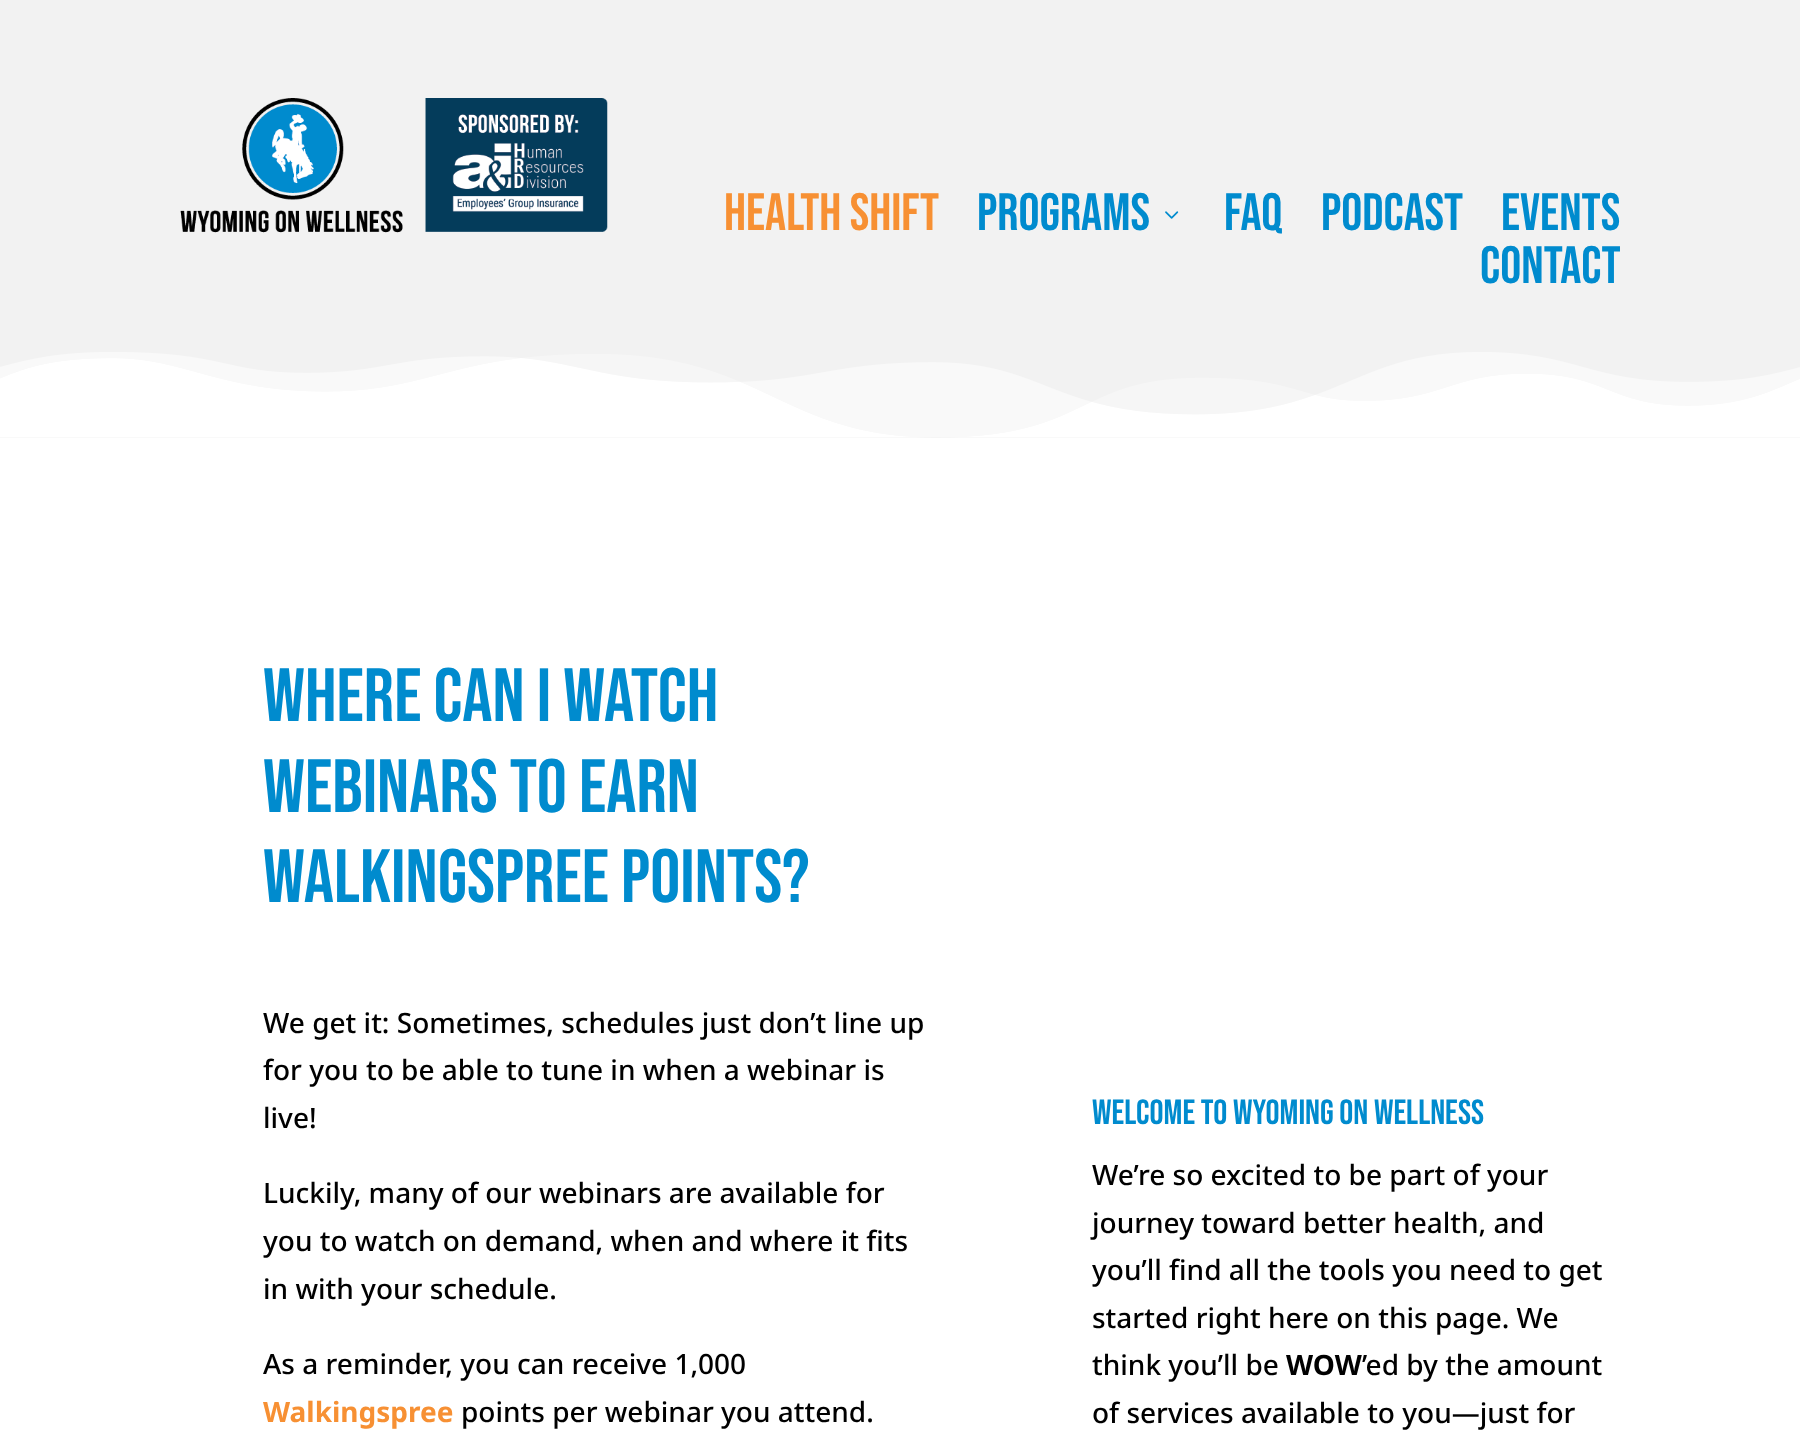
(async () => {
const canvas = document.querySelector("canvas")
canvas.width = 1800
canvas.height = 1443
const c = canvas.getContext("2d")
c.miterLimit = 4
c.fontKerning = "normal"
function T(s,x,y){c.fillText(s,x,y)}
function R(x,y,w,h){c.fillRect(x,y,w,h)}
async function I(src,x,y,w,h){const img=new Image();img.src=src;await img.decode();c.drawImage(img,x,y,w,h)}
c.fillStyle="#fff"
R(0,0,1800,1443)
c.fillStyle="#f2f2f2"
R(0,0,1800,438)
await I("1.png",180,98,428,135)
c.font="52.5px Bebas Neue"
c.fillStyle="#f79033"
T("HEALTH SHIFT",724,230)
c.fillStyle="#008bce"
T("PROGRAMS",977,230)
await I("2.png",1165,211,14,8)
T("FAQ",1224,230)
T("PODCAST",1321,230)
T("EVENTS",1501,230)
T("CONTACT",1480,283)
await I("3.png",0,352,1800,86)
c.font="75.25px Bebas Neue"
T("WHERE CAN I WATCH",263,721)
T("WEBINARS TO EARN",263,812)
T("WALKINGSPREE POINTS?",263,902)
c.font="500 28px Noto Sans"
c.fillStyle="#000"
T("We get it: Sometimes, schedules just don’t line up",263,1033)
T("for you to be able to tune in when a webinar is",263,1080)
T("live!",263,1128)
T("Luckily, many of our webinars are available for",263,1203)
T("you to watch on demand, when and where it fits",263,1251)
T("in with your schedule.",263,1299)
T("As a reminder, you can receive 1,000",263,1374)
c.font="bold 28px Noto Sans"
c.fillStyle="#f79033"
T("Walkingspree",263,1422)
c.font="500 28px Noto Sans"
c.fillStyle="#000"
T("points per webinar you attend.",461,1422)
c.font="35px Bebas Neue"
c.fillStyle="#008bce"
T("WELCOME TO WYOMING ON WELLNESS",1092,1124)
c.font="500 28px Noto Sans"
c.fillStyle="#000"
T("We’re so excited to be part of your",1092,1185)
T("journey toward better health, and",1092,1233)
T("you’ll find all the tools you need to get",1092,1280)
T("started right here on this page. We",1092,1328)
T("think you’ll be",1092,1375)
c.font="bold 28px Noto Sans"
T("WOW",1286,1375)
c.font="500 28px Noto Sans"
T("’ed by the amount",1362,1375)
T("of services available to you—just for",1092,1423)
})()
